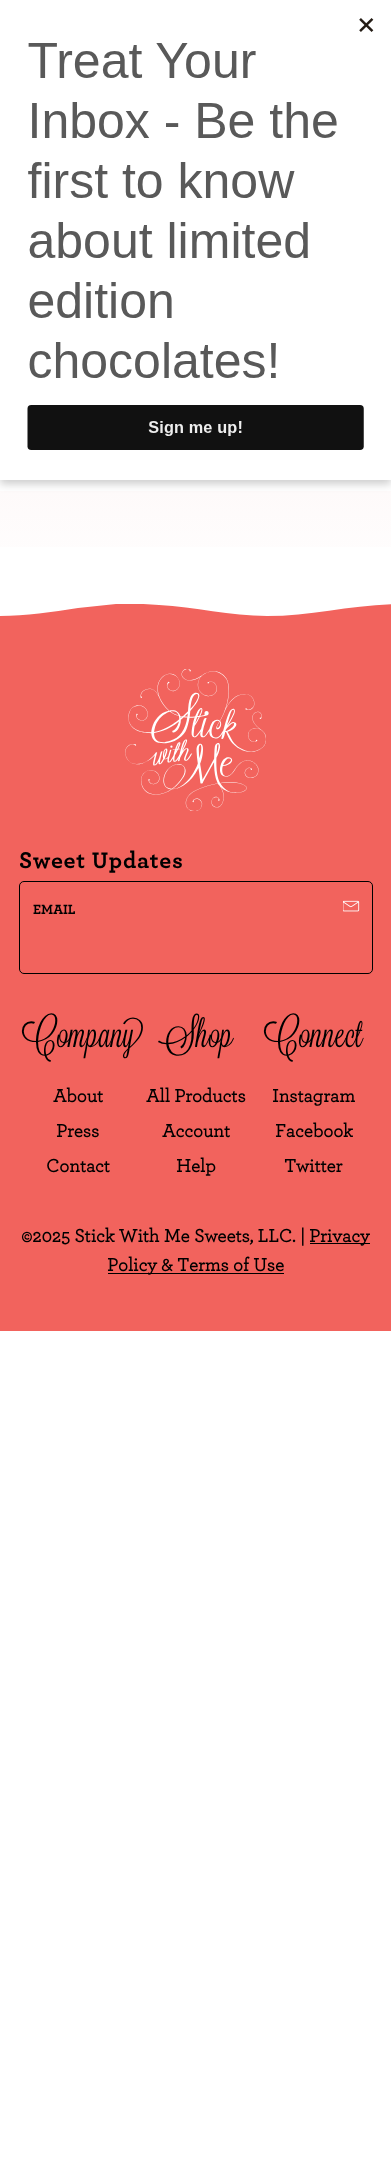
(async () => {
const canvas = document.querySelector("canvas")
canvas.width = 391
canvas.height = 2165
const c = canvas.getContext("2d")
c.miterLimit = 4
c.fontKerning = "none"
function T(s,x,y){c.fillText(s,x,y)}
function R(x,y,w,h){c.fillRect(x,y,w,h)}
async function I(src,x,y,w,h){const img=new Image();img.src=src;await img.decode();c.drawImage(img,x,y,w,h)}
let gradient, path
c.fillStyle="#fff"
R(0,0,391,2165)
gradient = c.createLinearGradient(196,491,196,604)
gradient.addColorStop(0,"#fefafa")
gradient.addColorStop(1,"#fff")
c.fillStyle = gradient
R(0,491,391,56)
c.fillStyle="#00000033"
c.filter="blur(4px)"
c.beginPath()
c.rect(0,4,391,480)
c.fill()
c.filter="none"
c.fillStyle="#fff"
R(0,0,391,480)
await I("1.png",27,18,347,432)
c.save()
c.beginPath()
c.rect(0,604,391,15)
c.clip()
c.fillStyle="#f2635d"
path = new Path2D("M0 616c26 0 52-4 78-8c13-1 25-3 38-4c14-1 29 0 43 1c36 2 71 11 108 11c45 0 88-12 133-12v15h-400z")
c.fill(path)
c.restore()
c.fillStyle="#f2635d"
R(0,619,391,712)
await I("2.png",125,669,141,142)
c.letterSpacing="0.75px"
c.font="bold 23.75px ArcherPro"
c.fillStyle="#000"
T("Sweet Updates",19,868)
c.beginPath()
c.roundRect(19.5,881.5,353,92,4.5)
c.strokeStyle="#000"
c.stroke()
c.letterSpacing="0px"
c.font="bold 14px ArcherPro"
T("EMAIL",33,914)
await I("3.png",343,900,17,12)
c.font="38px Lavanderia"
T("Company",21,1047)
c.font="bold 19px 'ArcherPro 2'"
T("About",53,1102)
T("Press",56,1137)
T("Contact",46,1172)
c.font="38px Lavanderia"
T("Shop",158,1047)
c.font="bold 19px 'ArcherPro 2'"
T("All Products",146,1102)
T("Account",162,1137)
T("Help",176,1172)
c.font="38px Lavanderia"
T("Connect",263,1047)
c.font="bold 19px 'ArcherPro 2'"
T("Instagram",272,1102)
T("Facebook",275,1137)
T("Twitter",284,1172)
T("©2025 Stick With Me Sweets, LLC. |",21,1242)
R(310,1243,60,1)
T("Privacy",309,1242)
R(108,1273,176,1)
T("Policy & Terms of Use",107,1271)
})()
